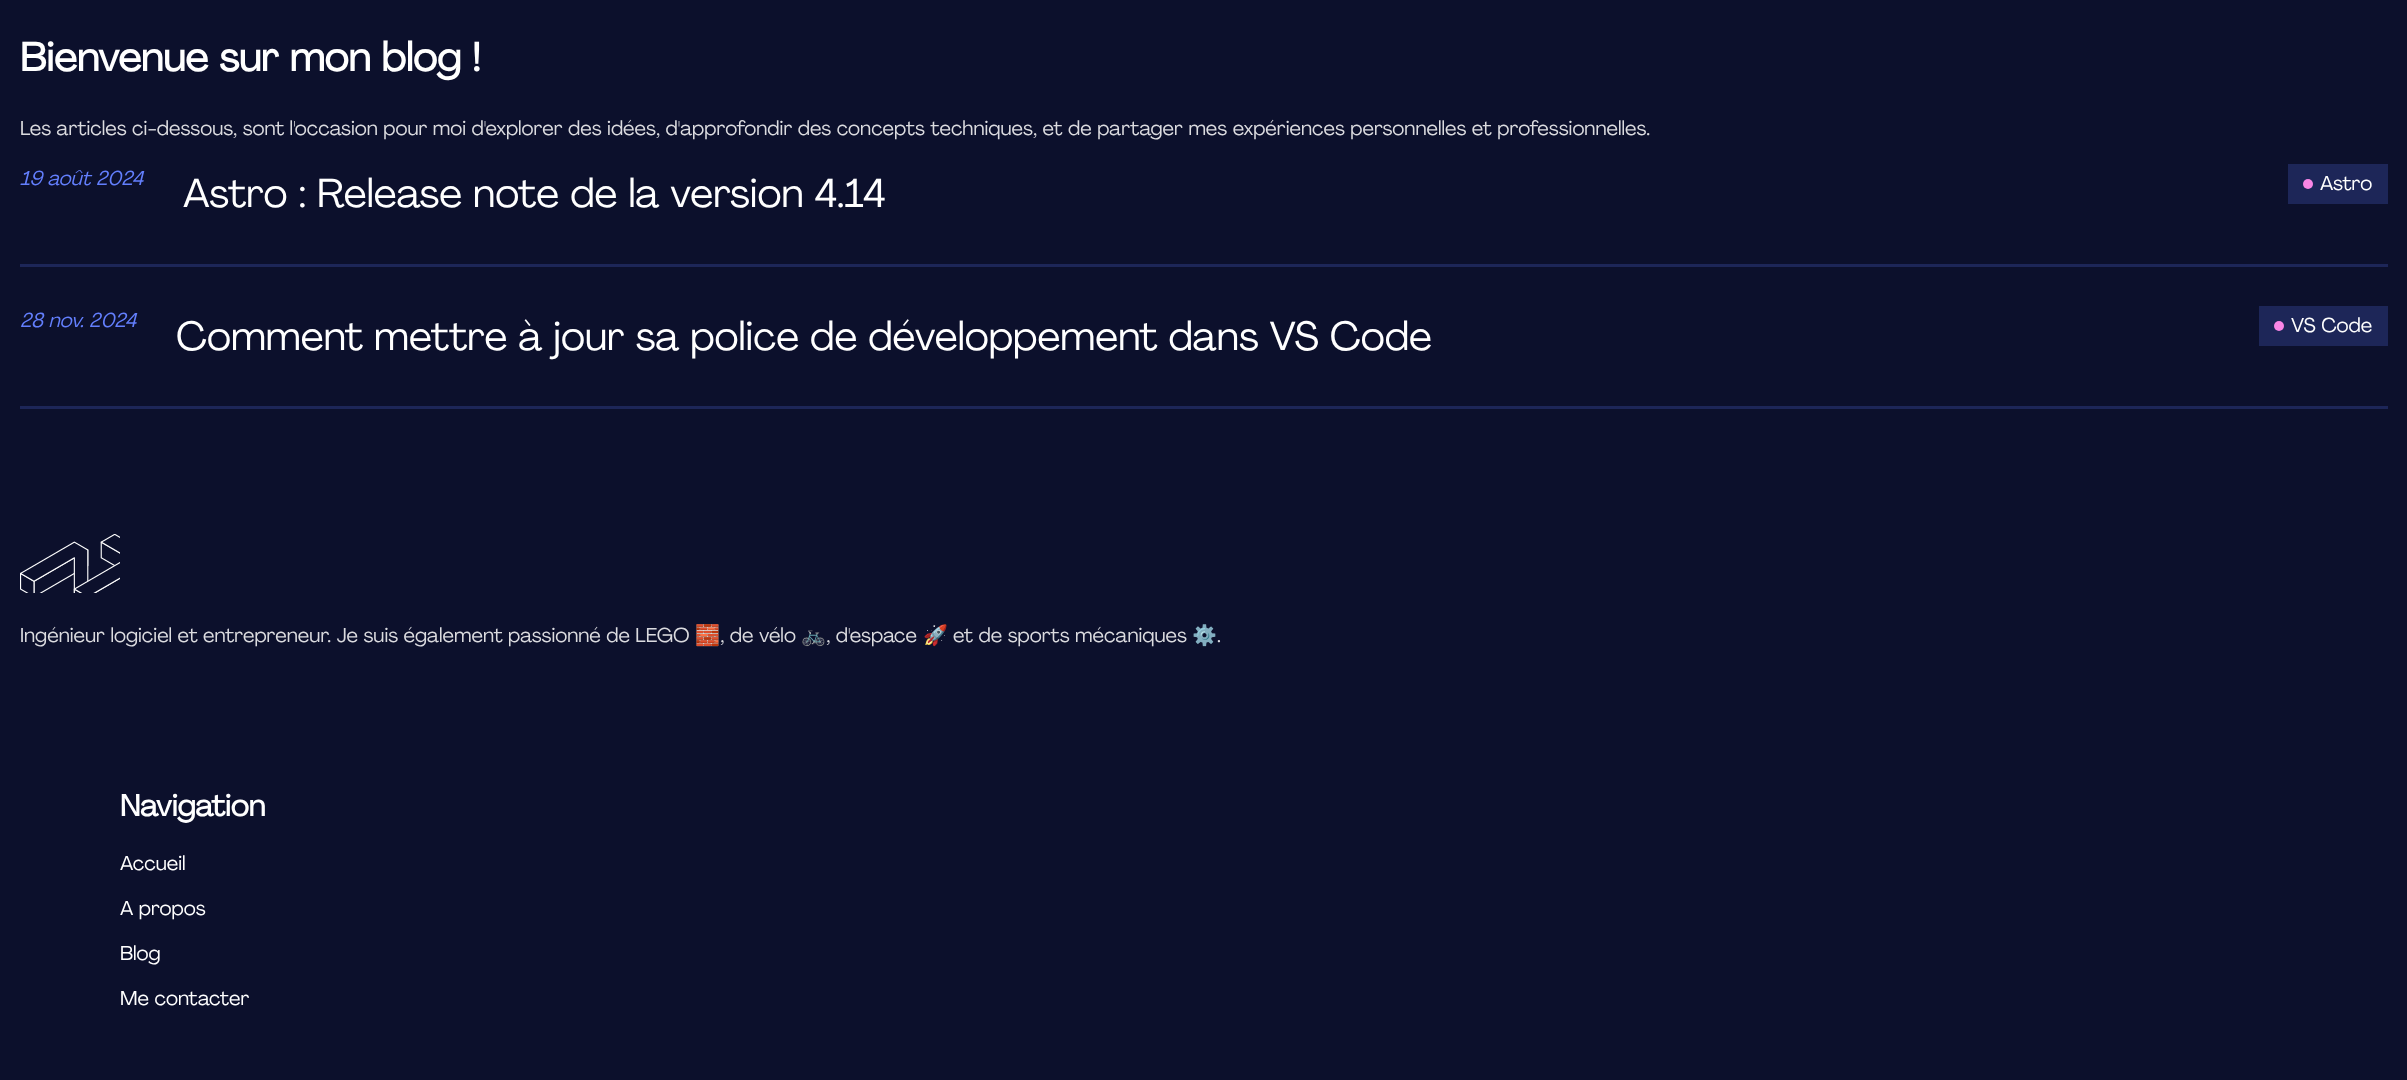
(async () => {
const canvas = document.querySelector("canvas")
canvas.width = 2407
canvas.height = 1080
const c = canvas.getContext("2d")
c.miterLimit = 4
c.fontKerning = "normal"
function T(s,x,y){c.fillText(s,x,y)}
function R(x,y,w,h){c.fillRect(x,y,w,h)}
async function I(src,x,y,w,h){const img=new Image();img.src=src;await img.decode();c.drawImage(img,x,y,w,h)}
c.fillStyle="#0c102c"
R(0,0,2407,1080)
c.font="bold 40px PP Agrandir"
c.fillStyle="#fff"
T("Bienvenue sur mon blog !",20,71)
c.font="20px PP Agrandir"
c.fillStyle="#dbdbdf"
T("Les articles ci-dessous, sont l'occasion pour moi d'explorer des idées, d'approfondir des concepts techniques, et de partager mes expériences personnelles et professionnelles.",20,135)
c.font="italic 20px PP Agrandir"
c.fillStyle="#637ffd"
T("19 août 2024",20,185)
c.font="40px PP Agrandir"
c.fillStyle="#fff"
T("Astro : Release note de la version 4.14",183,207)
c.fillStyle="#1d2658"
R(2288,164,100,40)
c.fillStyle="#f986e6"
c.beginPath()
c.arc(2308,184,5,0,7)
c.fill()
c.font="20px PP Agrandir"
c.fillStyle="#fff"
T("Astro",2320,190)
c.fillStyle="#1d2658"
R(20,264,2368,3)
c.font="italic 20px PP Agrandir"
c.fillStyle="#637ffd"
T("28 nov. 2024",20,327)
c.font="40px PP Agrandir"
c.fillStyle="#fff"
T("Comment mettre à jour sa police de développement dans VS Code",176,350)
c.fillStyle="#1d2658"
R(2259,306,129,40)
c.fillStyle="#f986e6"
c.beginPath()
c.arc(2279,326,5,0,7)
c.fill()
c.font="20px PP Agrandir"
c.fillStyle="#fff"
T("VS Code",2291,332)
c.fillStyle="#1d2658"
R(20,406,2368,3)
await I("1.png",20,534,100,59)
c.fillStyle="#dbdbdf"
T("Ingénieur logiciel et entrepreneur. Je suis également passionné de LEGO",20,642)
c.font="20px Noto Color Emoji"
T("🧱",695,642)
c.font="20px PP Agrandir"
T(", de vélo",720,642)
c.font="20px Noto Color Emoji"
T("🚲",801,642)
c.font="20px PP Agrandir"
T(", d'espace",826,642)
c.font="20px Noto Color Emoji"
T("🚀",923,642)
c.font="20px PP Agrandir"
T("et de sports mécaniques",953,642)
c.font="20px Noto Color Emoji"
T("⚙️",1192,642)
c.font="20px PP Agrandir"
T(".",1217,642)
c.font="bold 30px PP Agrandir"
c.fillStyle="#fff"
T("Navigation",120,816)
c.font="20px PP Agrandir"
T("Accueil",120,870)
T("A propos",120,915)
T("Blog",120,960)
T("Me contacter",120,1005)
})()
